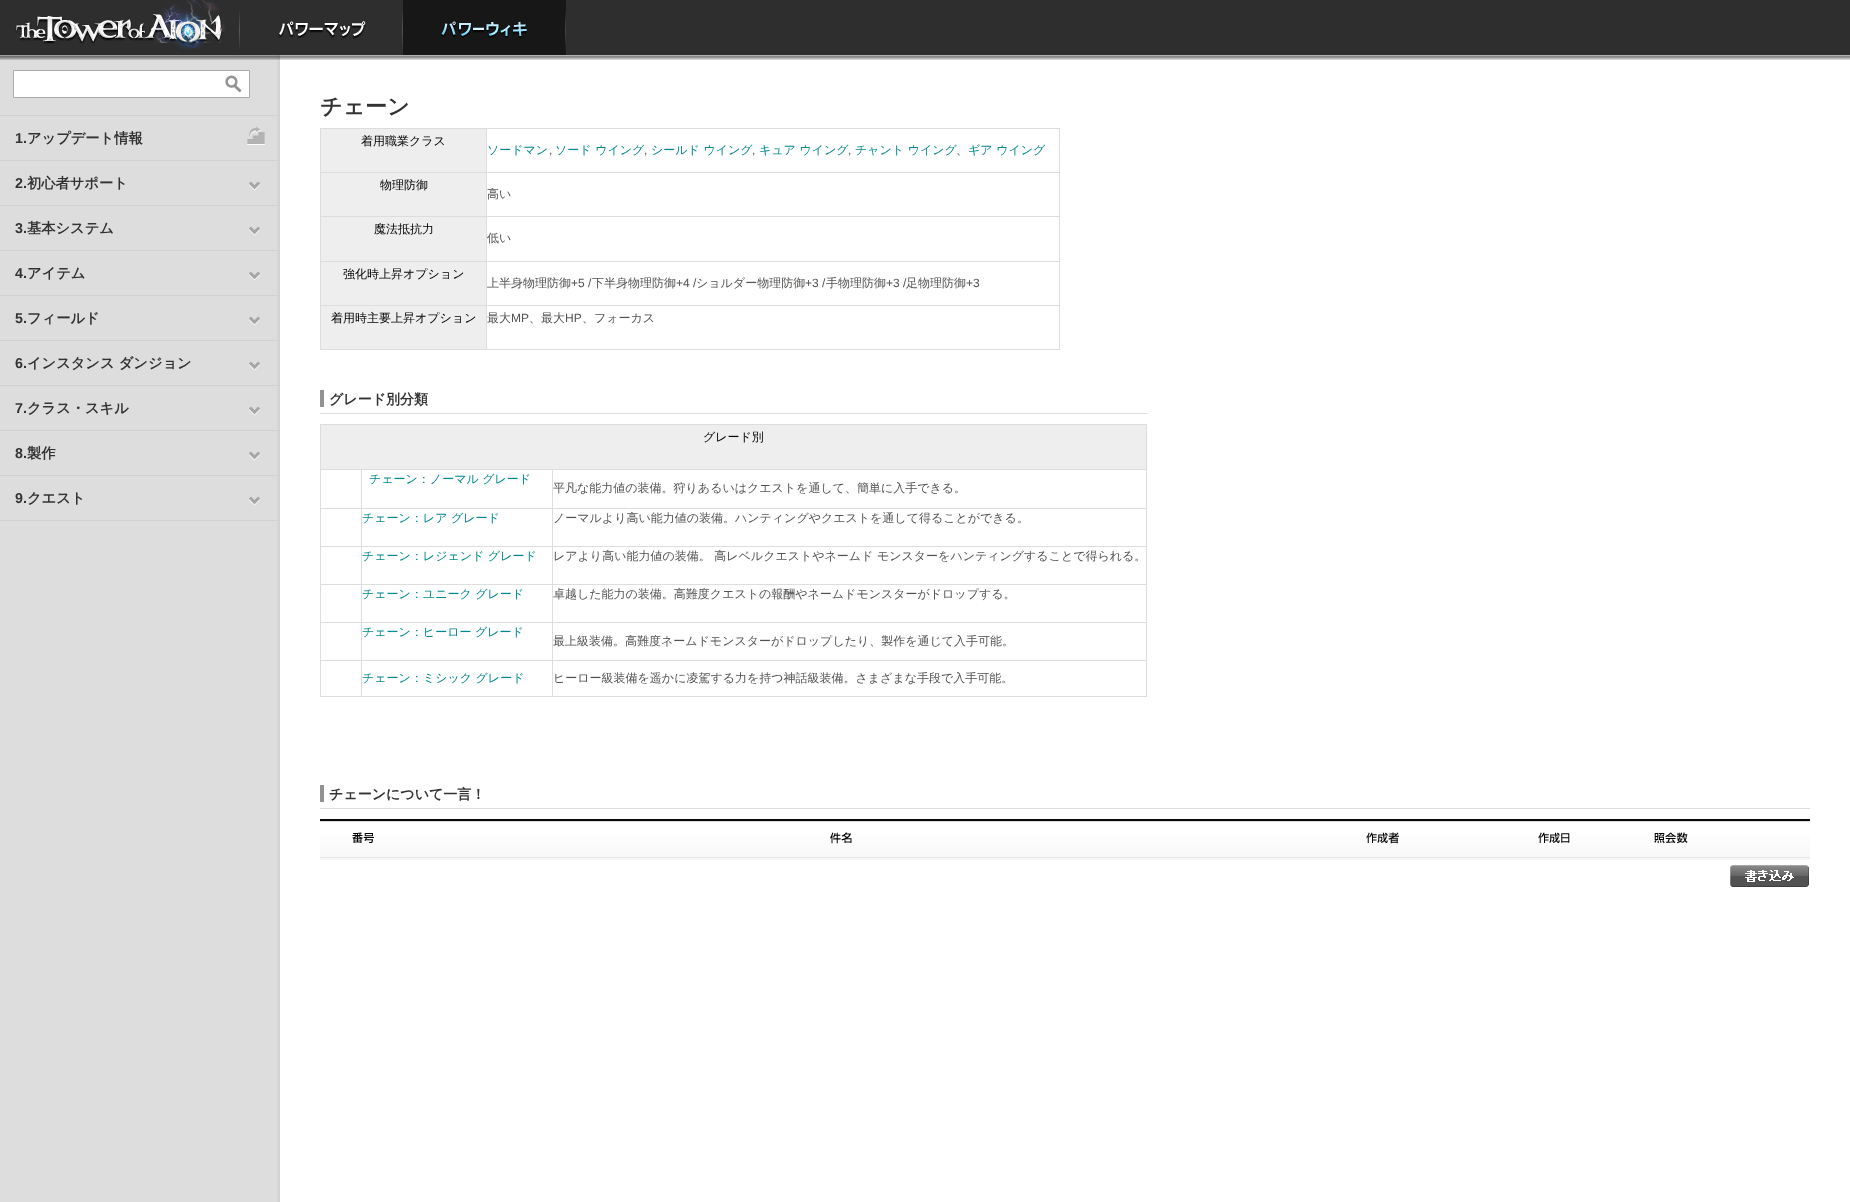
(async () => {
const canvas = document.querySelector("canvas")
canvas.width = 1850
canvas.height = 1202
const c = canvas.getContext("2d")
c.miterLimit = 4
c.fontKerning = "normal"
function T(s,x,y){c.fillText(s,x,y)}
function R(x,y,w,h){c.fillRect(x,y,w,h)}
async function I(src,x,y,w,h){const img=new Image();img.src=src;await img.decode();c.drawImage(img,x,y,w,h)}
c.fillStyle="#fff"
R(0,0,1850,1202)
await I("7.png",0,55,280,1147)
await I("1.png",0,0,1850,60)
await I("2.png",239,11,1,39)
await I("3.png",15,0,211,52)
await I("2.png",402,11,1,39)
await I("4.png",278,21,125,18)
c.fillStyle="#171717"
R(403,0,163,55)
await I("5.png",565,11,1,39)
await I("6.png",441,21,86,17)
c.fillStyle="#d1d1d1"
R(0,115,280,1)
c.fillStyle="#fff"
c.beginPath()
c.rect(13.5,70.5,236,27)
c.fill()
c.strokeStyle="#ababab"
c.stroke()
await I("8.png",225,75,17,18)
c.fillStyle="#d1d1d1"
R(0,160,280,1)
await I("9.png",247,126,18,19)
c.font="bold 14.25px Liberation Sans"
c.fillStyle="#333"
T("1.",15,143)
c.font="bold 14.25px WenQuanYi Zen Hei"
T("アップデート情報",27,143)
c.fillStyle="#d1d1d1"
R(0,205,280,1)
await I("10.png",249,181,11,10)
c.font="bold 14.25px Liberation Sans"
c.fillStyle="#333"
T("2.",15,188)
c.font="bold 14.25px WenQuanYi Zen Hei"
T("初心者サポート",27,188)
c.fillStyle="#d1d1d1"
R(0,250,280,1)
await I("10.png",249,226,11,10)
c.font="bold 14.25px Liberation Sans"
c.fillStyle="#333"
T("3.",15,233)
c.font="bold 14.25px WenQuanYi Zen Hei"
T("基本システム",27,233)
c.fillStyle="#d1d1d1"
R(0,295,280,1)
await I("10.png",249,271,11,10)
c.font="bold 14.25px Liberation Sans"
c.fillStyle="#333"
T("4.",15,278)
c.font="bold 14.25px WenQuanYi Zen Hei"
T("アイテム",27,278)
c.fillStyle="#d1d1d1"
R(0,340,280,1)
await I("10.png",249,316,11,10)
c.font="bold 14.25px Liberation Sans"
c.fillStyle="#333"
T("5.",15,323)
c.font="bold 14.25px WenQuanYi Zen Hei"
T("フィールド",27,323)
c.fillStyle="#d1d1d1"
R(0,385,280,1)
await I("10.png",249,361,11,10)
c.font="bold 14.25px Liberation Sans"
c.fillStyle="#333"
T("6.",15,368)
c.font="bold 14.25px WenQuanYi Zen Hei"
T("インスタンス ダンジョン",27,368)
c.fillStyle="#d1d1d1"
R(0,430,280,1)
await I("10.png",249,406,11,10)
c.font="bold 14.25px Liberation Sans"
c.fillStyle="#333"
T("7.",15,413)
c.font="bold 14.25px WenQuanYi Zen Hei"
T("クラス・スキル",27,413)
c.fillStyle="#d1d1d1"
R(0,475,280,1)
await I("10.png",249,451,11,10)
c.font="bold 14.25px Liberation Sans"
c.fillStyle="#333"
T("8.",15,458)
c.font="bold 14.25px WenQuanYi Zen Hei"
T("製作",27,458)
c.fillStyle="#d1d1d1"
R(0,520,280,1)
await I("10.png",249,496,11,10)
c.font="bold 14.25px Liberation Sans"
c.fillStyle="#333"
T("9.",15,503)
c.font="bold 14.25px WenQuanYi Zen Hei"
T("クエスト",27,503)
c.font="bold 22px WenQuanYi Zen Hei"
T("チェーン",320,114)
c.fillStyle="#eee"
R(321,129,165,43)
c.fillStyle="#ddd"
R(486,128,574,1)
R(486,172,574,1)
R(486,216,574,1)
R(486,261,574,1)
R(486,305,574,1)
R(1059,305,1,45)
R(486,349,574,1)
R(486,305,1,45)
R(320,305,167,1)
R(486,261,1,45)
R(320,261,167,1)
R(486,216,1,46)
R(320,216,167,1)
R(486,172,1,45)
R(320,172,167,1)
R(486,128,1,45)
R(320,128,167,1)
R(320,349,167,1)
R(320,305,1,45)
R(320,261,1,45)
R(320,216,1,46)
R(320,172,1,45)
R(320,128,1,45)
c.font="500 12px WenQuanYi Zen Hei"
c.fillStyle="#000"
T("着用職業クラス",361,145)
c.fillStyle="#ddd"
R(1059,261,1,45)
R(1059,216,1,46)
R(1059,172,1,45)
R(1059,128,1,45)
c.fillStyle="#01888e"
T("ソードマン",487,154)
c.font="12px Liberation Sans"
c.fillStyle="#535352"
T(",",549,154)
c.font="500 12px WenQuanYi Zen Hei"
c.fillStyle="#01888e"
T("ソード ウイング",555,154)
c.font="12px Liberation Sans"
c.fillStyle="#535352"
T(",",644,154)
c.font="500 12px WenQuanYi Zen Hei"
c.fillStyle="#01888e"
T("シールド ウイング",651,154)
c.font="12px Liberation Sans"
c.fillStyle="#535352"
T(",",752,154)
c.font="500 12px WenQuanYi Zen Hei"
c.fillStyle="#01888e"
T("キュア ウイング",759,154)
c.font="12px Liberation Sans"
c.fillStyle="#535352"
T(",",848,154)
c.font="500 12px WenQuanYi Zen Hei"
c.fillStyle="#01888e"
T("チャント ウイング",855,154)
c.fillStyle="#535352"
T("、",956,154)
c.fillStyle="#01888e"
T("ギア ウイング",968,154)
c.fillStyle="#eee"
R(321,173,165,43)
c.fillStyle="#000"
T("物理防御",380,189)
c.fillStyle="#535352"
T("高い",487,198)
c.fillStyle="#eee"
R(321,217,165,44)
c.fillStyle="#000"
T("魔法抵抗力",374,233)
c.fillStyle="#535352"
T("低い",487,242)
c.fillStyle="#eee"
R(321,262,165,43)
c.fillStyle="#000"
T("強化時上昇オプション",343,278)
c.fillStyle="#535352"
T("上半身物理防御",487,287)
c.font="12px Liberation Sans"
T("+5 /",571,287)
c.font="500 12px WenQuanYi Zen Hei"
T("下半身物理防御",592,287)
c.font="12px Liberation Sans"
T("+4 /",676,287)
c.font="500 12px WenQuanYi Zen Hei"
T("ショルダー物理防御",696,287)
c.font="12px Liberation Sans"
T("+3 /",805,287)
c.font="500 12px WenQuanYi Zen Hei"
T("手物理防御",826,287)
c.font="12px Liberation Sans"
T("+3 /",886,287)
c.font="500 12px WenQuanYi Zen Hei"
T("足物理防御",906,287)
c.font="12px Liberation Sans"
T("+3",966,287)
c.fillStyle="#eee"
R(321,306,165,43)
c.font="500 12px WenQuanYi Zen Hei"
c.fillStyle="#000"
T("着用時主要上昇オプション",331,322)
c.fillStyle="#535352"
T("最大",487,322)
c.font="12px Liberation Sans"
T("MP",511,322)
c.font="500 12px WenQuanYi Zen Hei"
T("、最大",529,322)
c.font="12px Liberation Sans"
T("HP",565,322)
c.font="500 12px WenQuanYi Zen Hei"
T("、フォーカス",582,322)
c.fillStyle="#ddd"
R(320,413,827,1)
c.fillStyle="#929292"
R(320,390,4,17)
c.font="bold 14px WenQuanYi Zen Hei"
c.fillStyle="#333"
T("グレード別分類",329,404)
c.fillStyle="#eee"
R(321,425,825,44)
c.fillStyle="#ddd"
R(320,424,827,1)
R(552,469,595,1)
R(552,508,595,1)
R(552,546,595,1)
R(552,584,595,1)
R(552,622,595,1)
R(552,660,595,1)
R(1146,660,1,37)
R(1146,622,1,39)
R(1146,584,1,39)
R(1146,546,1,39)
R(1146,508,1,39)
R(1146,469,1,40)
R(1146,424,1,46)
R(552,696,595,1)
R(552,660,1,37)
R(361,660,192,1)
R(552,622,1,39)
R(361,622,192,1)
R(552,584,1,39)
R(361,584,192,1)
R(552,546,1,39)
R(361,546,192,1)
R(552,508,1,39)
R(361,508,192,1)
R(552,469,1,40)
R(361,469,192,1)
R(361,696,192,1)
R(361,660,1,37)
R(320,660,42,1)
R(361,622,1,39)
R(320,622,42,1)
R(361,584,1,39)
R(320,584,42,1)
R(361,546,1,39)
R(320,546,42,1)
R(361,508,1,39)
R(320,508,42,1)
R(361,469,1,40)
R(320,469,42,1)
R(320,696,42,1)
R(320,660,1,37)
R(320,622,1,39)
R(320,584,1,39)
R(320,546,1,39)
R(320,508,1,39)
R(320,469,1,40)
R(320,424,1,46)
c.font="500 12px WenQuanYi Zen Hei"
c.fillStyle="#000"
T("グレード別",703,441)
c.fillStyle="#01888e"
T("チェーン：ノーマル グレード",369,483)
c.fillStyle="#535352"
T("平凡な能力値の装備。狩りあるいはクエストを通して、簡単に入手できる。",553,492)
c.fillStyle="#01888e"
T("チェーン：レア グレード",362,522)
c.fillStyle="#535352"
T("ノーマルより高い能力値の装備。ハンティングやクエストを通して得ることができる。",553,522)
c.fillStyle="#01888e"
T("チェーン：レジェンド グレード",362,560)
c.fillStyle="#535352"
T("レアより高い能力値の装備。 高レベルクエストやネームド モンスターをハンティングすることで得られる。",553,560)
c.fillStyle="#01888e"
T("チェーン：ユニーク グレード",362,598)
c.fillStyle="#535352"
T("卓越した能力の装備。高難度クエストの報酬やネームドモンスターがドロップする。",553,598)
c.fillStyle="#01888e"
T("チェーン：ヒーロー グレード",362,636)
c.fillStyle="#535352"
T("最上級装備。高難度ネームドモンスターがドロップしたり、製作を通じて入手可能。",553,645)
c.fillStyle="#01888e"
T("チェーン：ミシック グレード",362,682)
c.fillStyle="#535352"
T("ヒーロー級装備を遥かに凌駕する力を持つ神話級装備。さまざまな手段で入手可能。",553,682)
c.fillStyle="#ddd"
R(320,808,1490,1)
c.fillStyle="#929292"
R(320,785,4,17)
c.font="bold 14px WenQuanYi Zen Hei"
c.fillStyle="#333"
T("チェーンについて一言！",329,799)
await I("11.png",320,819,85,41)
await I("12.png",352,832,22,11)
await I("13.png",405,819,871,41)
await I("14.png",830,832,22,12)
await I("15.png",1276,819,214,41)
await I("16.png",1366,832,33,12)
await I("17.png",1490,819,128,41)
await I("18.png",1538,832,32,11)
await I("19.png",1618,819,107,41)
await I("20.png",1654,832,34,12)
await I("11.png",1725,819,85,41)
await I("21.png",1730,865,79,22)
})()
